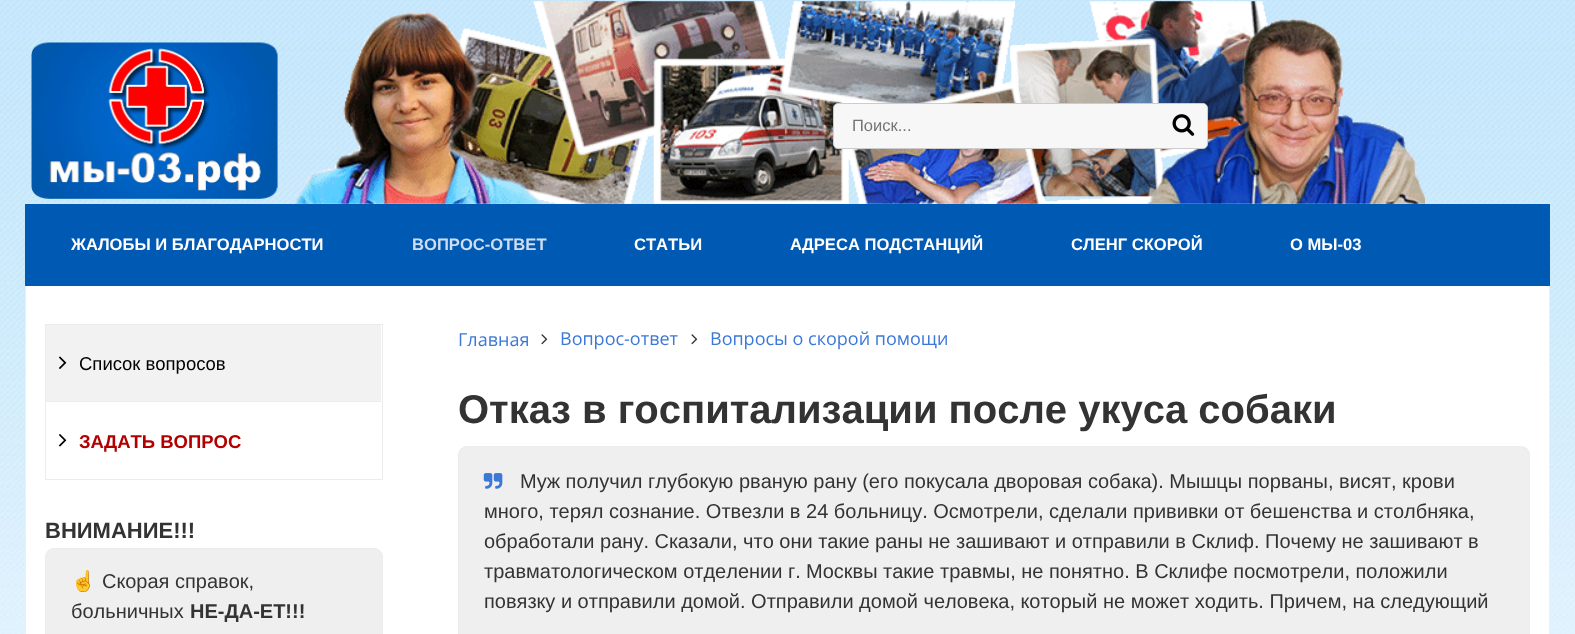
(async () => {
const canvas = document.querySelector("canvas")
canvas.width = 1575
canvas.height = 634
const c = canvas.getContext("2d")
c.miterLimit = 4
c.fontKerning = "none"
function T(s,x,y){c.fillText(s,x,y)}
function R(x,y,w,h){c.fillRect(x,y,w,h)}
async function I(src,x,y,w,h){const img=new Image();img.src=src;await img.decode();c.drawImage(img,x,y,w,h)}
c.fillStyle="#fff"
R(0,0,1575,634)
await I("1.png",0,0,1575,634)
await I("2.png",295,1,1130,203)
await I("3.png",31,42,247,157)
c.fillStyle="#f7f7f7"
c.beginPath()
c.roundRect(833.5,103.5,374,45,4.5)
c.fill()
c.strokeStyle="#ccc"
c.stroke()
c.font="16.5px Liberation Sans"
c.fillStyle="#757575"
T("Поиск...",852,131)
await I("4.png",1172,114,23,22)
c.fillStyle="#0059b2"
R(25,204,1525,82)
c.font="bold 16.6px Liberation Sans"
c.fillStyle="#fff"
T("ЖАЛОБЫ И БЛАГОДАРНОСТИ",71,250)
c.fillStyle="#ccdef0"
T("ВОПРОС-ОТВЕТ",412,250)
c.fillStyle="#fff"
T("СТАТЬИ",634,250)
T("АДРЕСА ПОДСТАНЦИЙ",790,250)
T("СЛЕНГ СКОРОЙ",1071,250)
T("О МЫ-03",1290,250)
R(26,286,1523,348)
c.fillStyle="#efefef"
R(1549,286,1,348)
R(25,286,1,348)
c.strokeStyle="#ececec"
c.strokeRect(45.5,324.5,337,155)
c.fillStyle="#ececec"
R(46,401,335,1)
c.fillStyle="#f2f2f2"
R(46,325,335,76)
await I("5.png",59,356,8,13)
c.font="18.5px Liberation Sans"
c.fillStyle="#000"
T("Список вопросов",79,370)
await I("6.png",59,434,8,13)
c.font="bold 18.5px Liberation Sans"
c.fillStyle="#b20000"
T("ЗАДАТЬ ВОПРОС",79,448)
c.font="bold 22px Liberation Sans"
c.fillStyle="#333"
T("ВНИМАНИЕ!!!",45,538)
c.fillStyle="#efefef"
c.beginPath()
c.roundRect(45.5,548.5,337,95,8.5)
c.fill()
c.stroke()
c.font="20px Noto Color Emoji"
c.fillStyle="#333"
T("☝",71,588)
c.font="20px Liberation Sans"
T("Скорая справок,",102,588)
T("больничных",71,618)
c.font="bold 20px Liberation Sans"
T("НЕ-ДА-ЕТ!!!",190,618)
c.font="18px Open Sans"
c.fillStyle="#3c78d7"
T("Главная",458,346)
await I("7.png",541,334,7,11)
T("Вопрос-ответ",560,345)
await I("7.png",691,334,7,11)
T("Вопросы о скорой помощи",710,345)
c.font="bold 40px Liberation Sans"
c.fillStyle="#333"
T("Отказ в госпитализации после укуса собаки",458,423)
c.fillStyle="#efefef"
c.beginPath()
c.roundRect(458.5,446.5,1071,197,8.5)
c.fill()
c.stroke()
await I("8.png",483,473,20,16)
c.font="20px Liberation Sans"
c.fillStyle="#333"
T("Муж получил глубокую рваную рану (его покусала дворовая собака). Мышцы порваны, висят, крови",520,488)
T("много, терял сознание. Отвезли в 24 больницу. Осмотрели,",484,518)
T("сделали прививки от бешенства и столбняка,",1049,518)
T("обработали рану. Сказали, что они такие раны не зашивают и отправили в Склиф. Почему не зашивают",484,548)
T("в",1468,548)
T("травматологическом отделении г.",484,578)
T("Москвы такие травмы, не понятно. В Склифе посмотрели, положили",806,578)
T("повязку и отправили домой. Отправили домой человека, который не может ходить. Причем, на следующий",484,608)
})()
